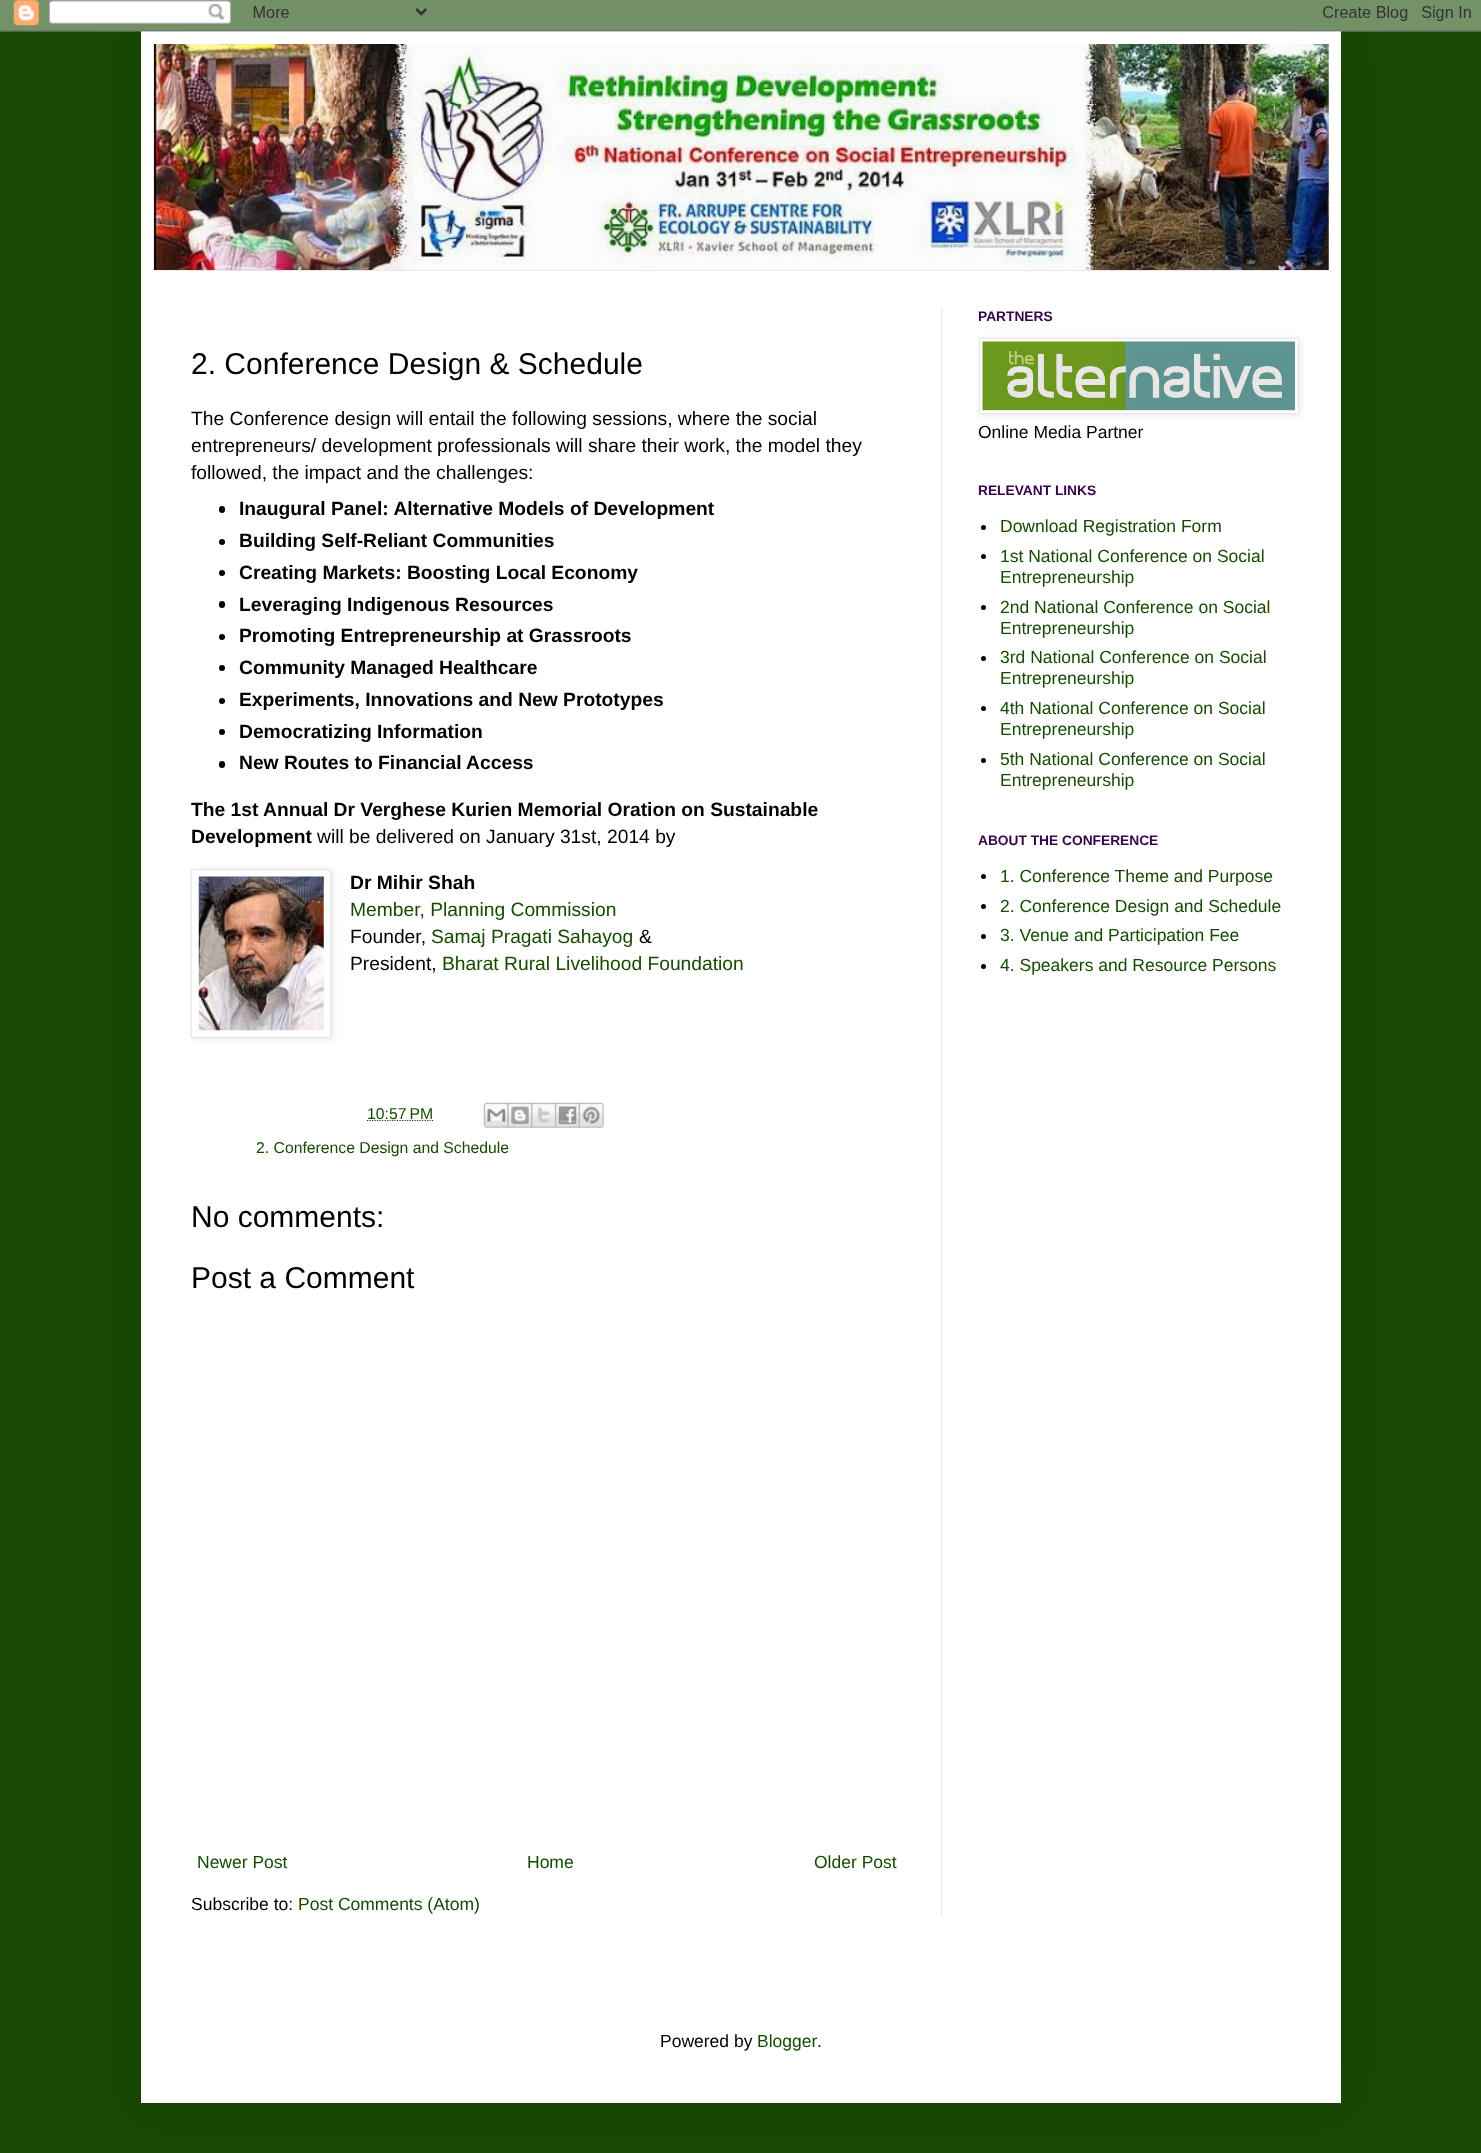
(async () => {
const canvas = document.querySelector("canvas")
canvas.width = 1481
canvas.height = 2153
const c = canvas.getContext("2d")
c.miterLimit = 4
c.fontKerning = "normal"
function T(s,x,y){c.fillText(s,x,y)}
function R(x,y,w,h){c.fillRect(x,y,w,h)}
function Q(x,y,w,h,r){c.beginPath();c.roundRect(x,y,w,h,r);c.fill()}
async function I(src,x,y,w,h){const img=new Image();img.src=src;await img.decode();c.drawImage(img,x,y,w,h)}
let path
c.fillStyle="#184a03"
R(0,0,1481,2153)
c.fillStyle="#00000026"
c.filter="blur(25px)"
c.beginPath()
c.rect(141,31,1200,2072)
c.fill()
c.filter="none"
c.fillStyle="#fff"
R(141,31,1200,2072)
await I("1.png",0,0,1481,32)
await I("2.png",153,44,1176,227)
c.fillStyle="#e7e7e7"
R(191,270,1100,1)
R(941,309,1,1607)
c.font="30px Liberation Sans"
c.fillStyle="#000"
T("2. Conference Design & Schedule",191,374)
c.font="19.25px Liberation Sans"
T("The Conference design will entail the following sessions, where the social",191,425)
T("entrepreneurs/ development professionals will share their work, the model they",191,452)
T("followed, the impact and the challenges:",191,479)
Q(219,506,6,7,3)
c.font="bold 19.25px Liberation Sans"
T("Inaugural Panel: Alternative Models of Development",239,515)
c.beginPath()
c.arc(222,542,3,0,7)
c.fill()
T("Building Self-Reliant Communities",239,547)
c.beginPath()
c.arc(222,573,3,0,7)
c.fill()
T("Creating Markets: Boosting Local Economy",239,579)
Q(219,601,6,7,3)
T("Leveraging Indigenous Resources",239,611)
c.beginPath()
c.arc(222,637,3,0,7)
c.fill()
T("Promoting Entrepreneurship at Grassroots",239,642)
c.beginPath()
c.arc(222,668,3,0,7)
c.fill()
T("Community Managed Healthcare",239,674)
c.beginPath()
c.arc(222,701,3,0,7)
c.fill()
T("Experiments, Innovations and New Prototypes",239,706)
c.beginPath()
c.arc(222,732,3,0,7)
c.fill()
T("Democratizing Information",239,738)
Q(219,761,6,7,3)
T("New Routes to Financial Access",239,769)
T("The 1st Annual Dr Verghese Kurien Memorial Oration on Sustainable",191,816)
T("Development",191,843)
c.font="19.25px Liberation Sans"
T("will be delivered on January 31st, 2014 by",317,843)
c.fillStyle="#0000001a"
c.filter="blur(3px)"
c.beginPath()
c.rect(193,870,140,169)
c.fill()
c.filter="none"
c.fillStyle="#fff"
c.beginPath()
c.rect(191.5,869.5,139,168)
c.fill()
c.strokeStyle="#e7e7e7"
c.stroke()
await I("3.png",198,876,126,155)
c.font="bold 19.25px Liberation Sans"
c.fillStyle="#000"
T("Dr Mihir Shah",350,889)
c.font="19.25px Liberation Sans"
c.fillStyle="#154a00"
T("Member, Planning Commission",350,916)
c.fillStyle="#000"
T("Founder,",350,943)
c.fillStyle="#154a00"
T("Samaj Pragati Sahayog",431,943)
c.fillStyle="#000"
T("&",639,943)
T("President,",350,970)
c.fillStyle="#154a00"
T("Bharat Rural Livelihood Foundation",442,970)
path = new Path2D("M367 1120.5h66")
c.strokeStyle="#154a00"
c.lineWidth=1.2
c.setLineDash([1.25,1.25])
c.stroke(path)
c.font="15.75px Liberation Sans"
T("10:57 PM",367,1119)
await I("4.png",483,1102,26,26)
await I("5.png",507,1102,26,26)
await I("6.png",531,1102,26,26)
await I("7.png",555,1102,25,26)
await I("8.png",578,1102,26,26)
T("2. Conference Design and Schedule",256,1153)
c.font="30px Liberation Sans"
c.fillStyle="#000"
T("No comments:",191,1227)
T("Post a Comment",191,1288)
c.font="17.5px Liberation Sans"
c.fillStyle="#154a00"
T("Newer Post",197,1868)
T("Home",527,1868)
T("Older Post",814,1868)
c.fillStyle="#000"
T("Subscribe to:",191,1910)
c.fillStyle="#154a00"
T("Post Comments (Atom)",298,1910)
c.font="bold 13.75px Liberation Sans"
c.fillStyle="#35034a"
T("PARTNERS",978,321)
c.fillStyle="#0000001a"
c.filter="blur(3px)"
c.beginPath()
c.rect(980,339,320,76)
c.fill()
c.filter="none"
c.fillStyle="#fff"
c.beginPath()
c.rect(979.5,338.5,319,75)
c.fill()
c.strokeStyle="#e7e7e7"
c.lineWidth=1
c.setLineDash([])
c.stroke()
await I("9.png",982,341,313,70)
c.font="17.5px Liberation Sans"
c.fillStyle="#000"
T("Online Media Partner",978,438)
c.font="bold 13.75px Liberation Sans"
c.fillStyle="#35034a"
T("RELEVANT LINKS",978,495)
c.fillStyle="#000"
c.beginPath()
c.arc(983.5,527.5,2.5,0,7)
c.fill()
c.font="17.5px Liberation Sans"
c.fillStyle="#154a00"
T("Download Registration Form",1000,532)
c.fillStyle="#000"
c.beginPath()
c.arc(983.5,556.5,2.5,0,7)
c.fill()
c.fillStyle="#154a00"
T("1st National Conference on Social",1000,562)
T("Entrepreneurship",1000,583)
c.fillStyle="#000"
c.beginPath()
c.arc(983.5,607.5,2.5,0,7)
c.fill()
c.fillStyle="#154a00"
T("2nd National Conference on Social",1000,613)
T("Entrepreneurship",1000,634)
c.fillStyle="#000"
c.beginPath()
c.arc(983.5,658.5,2.5,0,7)
c.fill()
c.fillStyle="#154a00"
T("3rd National Conference on Social",1000,663)
T("Entrepreneurship",1000,684)
c.fillStyle="#000"
c.beginPath()
c.arc(983.5,708.5,2.5,0,7)
c.fill()
c.fillStyle="#154a00"
T("4th National Conference on Social",1000,714)
T("Entrepreneurship",1000,735)
c.fillStyle="#000"
c.beginPath()
c.arc(983.5,760.5,2.5,0,7)
c.fill()
c.fillStyle="#154a00"
T("5th National Conference on Social",1000,765)
T("Entrepreneurship",1000,786)
c.font="bold 13.75px Liberation Sans"
c.fillStyle="#35034a"
T("ABOUT THE CONFERENCE",978,845)
c.fillStyle="#000"
c.beginPath()
c.arc(983.5,876.5,2.5,0,7)
c.fill()
c.font="17.5px Liberation Sans"
c.fillStyle="#154a00"
T("1. Conference Theme and Purpose",1000,882)
c.fillStyle="#000"
c.beginPath()
c.arc(983.5,906.5,2.5,0,7)
c.fill()
c.fillStyle="#154a00"
T("2. Conference Design and Schedule",1000,912)
c.fillStyle="#000"
c.beginPath()
c.arc(983.5,936.5,2.5,0,7)
c.fill()
c.fillStyle="#154a00"
T("3. Venue and Participation Fee",1000,941)
c.fillStyle="#000"
c.beginPath()
c.arc(983.5,966.5,2.5,0,7)
c.fill()
c.fillStyle="#154a00"
T("4. Speakers and Resource Persons",1000,971)
c.fillStyle="#000"
T("Powered by",660,2047)
c.fillStyle="#154a00"
T("Blogger",757,2047)
c.fillStyle="#000"
T(".",817,2047)
})()
